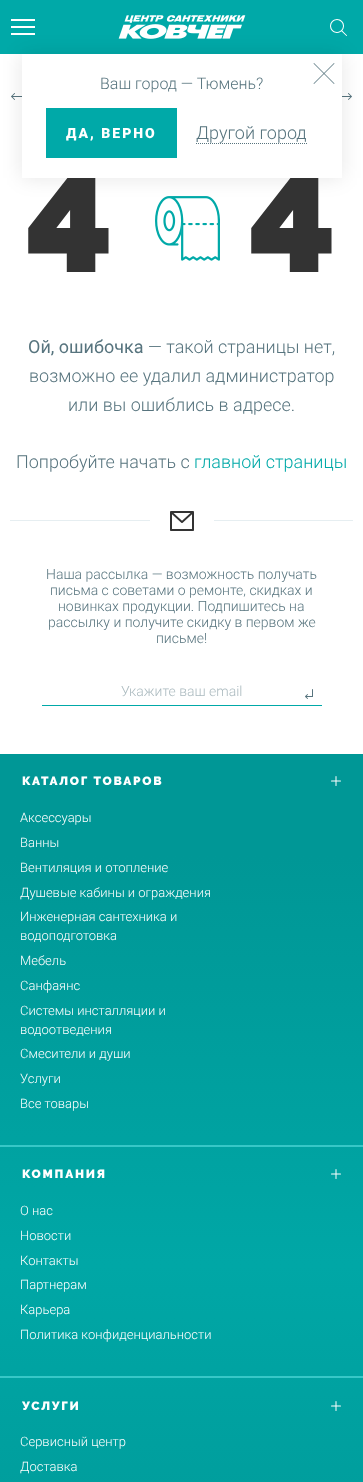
(async () => {
const canvas = document.querySelector("canvas")
canvas.width = 363
canvas.height = 1482
const c = canvas.getContext("2d")
c.miterLimit = 4
c.fontKerning = "normal"
function T(s,x,y){c.fillText(s,x,y)}
function R(x,y,w,h){c.fillRect(x,y,w,h)}
async function I(src,x,y,w,h){const img=new Image();img.src=src;await img.decode();c.drawImage(img,x,y,w,h)}
let gradient, path
c.fillStyle="#fff"
R(0,0,363,1482)
c.fillStyle="#00a9a8"
R(0,0,363,54)
c.fillStyle="#fff"
R(11,26,24,2)
R(11,19,24,2)
R(11,33,24,2)
await I("1.png",118,15,128,24)
await I("2.png",330,19,17,17)
await I("3.png",11,93,11,7)
await I("4.png",342,93,10,7)
await I("5.png",155,196,65,50)
c.fillStyle="#0000001a"
c.filter="blur(10px)"
c.beginPath()
c.rect(22,54,320,124)
c.fill()
c.filter="none"
c.font="900 150px Raleway"
c.fillStyle="#333"
T("4",26,253)
T("4",249,253)
c.fillStyle="#fff"
R(22,54,320,124)
c.font="300 16px Roboto"
c.fillStyle="#57747e"
T("Ваш город — Тюмень?",100,89)
path = new Path2D("M314 63l20.5 20.5l-.5 .5l-20.5-20.5z")
c.fill(path)
path = new Path2D("M313.5 83.5l20.5-20.5l.5 .5l-20.5 20.5z")
c.fill(path)
c.fillStyle="#00a9a8"
R(46,108,131,50)
c.letterSpacing="2px"
c.font="900 14px Roboto"
c.fillStyle="#fff"
T("ДА, ВЕРНО",66,138)
c.letterSpacing="0px"
c.font="300 18px Roboto"
c.fillStyle="#57747e"
T("Другой город",196,139)
path = new Path2D("M196 143.5h111")
c.strokeStyle="#57747e"
c.setLineDash([1,1])
c.stroke(path)
c.fillStyle="#fff"
R(181,223,39,12)
await I("6.png",181,223,39,38)
c.font="18px Roboto"
c.fillStyle="#57747e"
T("Ой, ошибочка",28,353)
c.font="300 18px Roboto"
T("— такой страницы нет,",148,353)
T("возможно ее удалил администратор",29,382)
T("или вы ошиблись в адресе.",68,411)
T("Попробуйте начать с",16,468)
c.fillStyle="#00a9a8"
T("главной страницы",194,468)
c.fillStyle="#e6eef1"
R(10,520,140,1)
await I("7.png",170,511,24,20)
R(214,520,139,1)
c.font="300 14px Roboto"
c.fillStyle="#57747e"
T("Наша рассылка — возможность получать",46,579)
T("письма с советами о ремонте, скидках и",50,595)
T("новинках продукции. Подпишитесь на",58,611)
T("рассылку и получите скидку в первом же",48,627)
T("письме!",156,643)
c.fillStyle="#00a9a8"
R(42,705,280,1)
c.fillStyle="#abbabf"
T("Укажите ваш email",121,696)
await I("8.png",305,689,8,10)
gradient = c.createLinearGradient(182,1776,182,754)
gradient.addColorStop(.1,"#009796")
gradient.addColorStop(.5,"#00a7a6")
gradient.addColorStop(.9,"#009796")
c.fillStyle = gradient
R(0,754,363,728)
c.fillStyle="#37c7c7"
R(0,1145,363,2)
c.letterSpacing="1.75px"
c.font="900 12px Raleway"
c.fillStyle="#fff"
T("КАТАЛОГ ТОВАРОВ",22,785)
await I("9.png",331,776,10,10)
c.letterSpacing="0px"
c.font="300 13px Roboto"
T("Аксессуары",20,822)
T("Ванны",20,847)
T("Вентиляция и отопление",20,872)
T("Душевые кабины и ограждения",20,897)
T("Инженерная сантехника и",20,921)
T("водоподготовка",20,940)
T("Мебель",20,965)
T("Санфаянс",20,990)
T("Системы инсталляции и",20,1015)
T("водоотведения",20,1034)
T("Смесители и души",20,1058)
T("Услуги",20,1083)
T("Все товары",20,1108)
c.fillStyle="#37c7c7"
R(0,1376,363,2)
c.letterSpacing="1.75px"
c.font="900 12px Raleway"
c.fillStyle="#fff"
T("КОМПАНИЯ",22,1178)
await I("10.png",331,1169,10,10)
c.letterSpacing="0px"
c.font="300 13px Roboto"
T("О нас",20,1215)
T("Новости",20,1240)
T("Контакты",20,1265)
T("Партнерам",20,1289)
T("Карьера",20,1314)
T("Политика конфиденциальности",20,1339)
c.letterSpacing="1.75px"
c.font="900 12px Raleway"
T("УСЛУГИ",22,1410)
await I("11.png",331,1401,10,10)
c.letterSpacing="0px"
c.font="300 13px Roboto"
T("Сервисный центр",20,1446)
T("Доставка",20,1471)
})()
